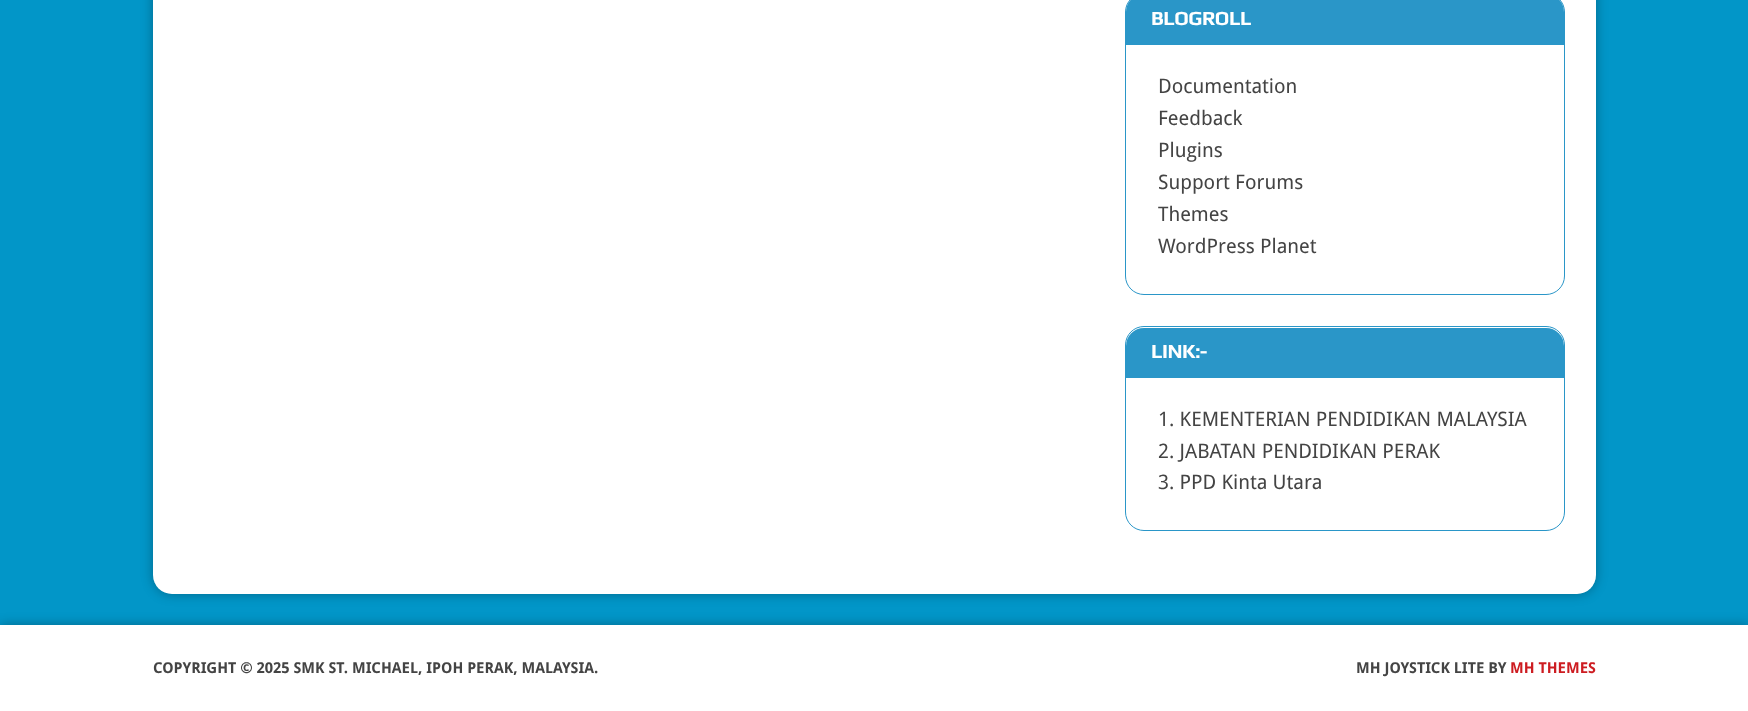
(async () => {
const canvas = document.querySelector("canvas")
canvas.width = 1748
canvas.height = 711
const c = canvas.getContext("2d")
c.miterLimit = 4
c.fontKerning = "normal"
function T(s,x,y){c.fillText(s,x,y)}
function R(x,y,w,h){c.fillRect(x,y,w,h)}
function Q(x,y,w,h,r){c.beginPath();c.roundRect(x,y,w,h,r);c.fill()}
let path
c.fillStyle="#0296c8"
R(0,0,1748,711)
c.fillStyle="#0000004d"
c.filter="blur(6px)"
c.beginPath()
c.roundRect(153,-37,1443,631,19)
c.fill()
c.filter="none"
c.fillStyle="#fff"
Q(153,-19,1443,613,19)
c.beginPath()
c.roundRect(1125.5,-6.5,439,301,18.5)
c.strokeStyle="#2a96c8"
c.stroke()
c.fillStyle="#2a96c8"
path = new Path2D("M1144-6h402c10 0 18 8 18 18v33h-438v-33c0-10 8-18 18-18z")
c.fill(path)
c.letterSpacing="-0.5px"
c.font="bold 20px Play"
c.fillStyle="#fff"
T("BLOGROLL",1151,25)
c.letterSpacing="0px"
c.font="20px Droid Sans"
c.fillStyle="#444"
T("Documentation",1158,93)
T("Feedback",1158,125)
T("Plugins",1158,157)
T("Support Forums",1158,189)
T("Themes",1158,221)
T("WordPress Planet",1158,253)
c.beginPath()
c.roundRect(1125.5,326.5,439,204,18.5)
c.stroke()
c.fillStyle="#2a96c8"
c.beginPath()
c.roundRect(1126,328,438,50,[18,18,0,0])
c.fill()
c.letterSpacing="-0.5px"
c.font="bold 20px Play"
c.fillStyle="#fff"
T("LINK:-",1151,358)
c.letterSpacing="0px"
c.font="20px Droid Sans"
c.fillStyle="#444"
T("1. KEMENTERIAN PENDIDIKAN MALAYSIA",1158,426)
T("2. JABATAN PENDIDIKAN PERAK",1158,458)
T("3. PPD Kinta Utara",1158,489)
c.fillStyle="#0000004d"
c.filter="blur(6px)"
c.beginPath()
c.rect(0,625,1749,86)
c.fill()
c.filter="none"
c.fillStyle="#fff"
R(0,625,1748,86)
c.font="bold 15px Droid Sans"
c.fillStyle="#444"
T("COPYRIGHT © 2025 SMK ST. MICHAEL, IPOH PERAK, MALAYSIA.",153,673)
T("MH JOYSTICK LITE BY",1356,673)
c.fillStyle="#cd1c21"
T("MH THEMES",1510,673)
})()
